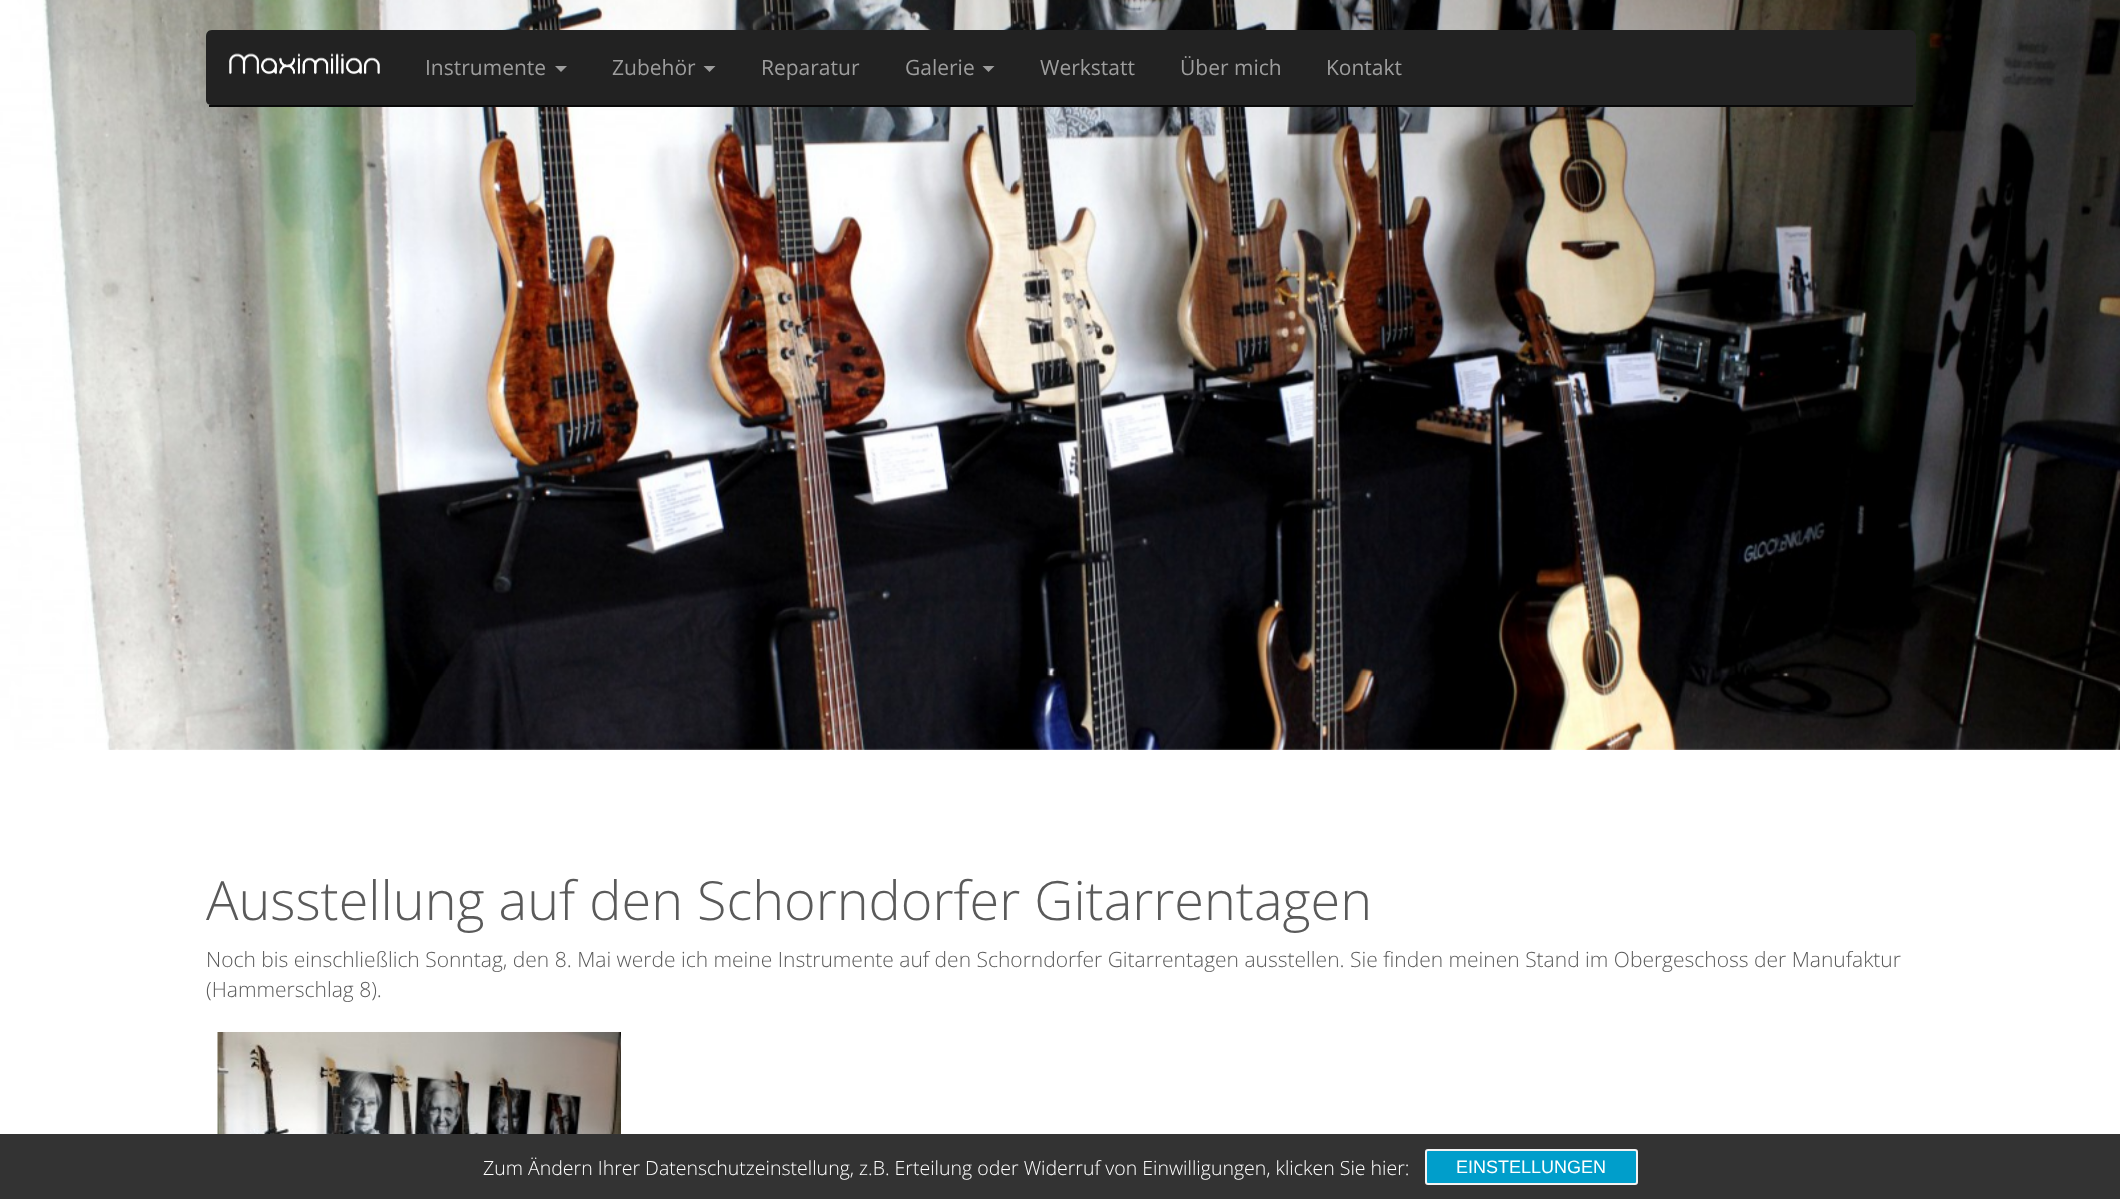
(async () => {
const canvas = document.querySelector("canvas")
canvas.width = 2120
canvas.height = 1199
const c = canvas.getContext("2d")
c.miterLimit = 4
c.fontKerning = "normal"
function T(s,x,y){c.fillText(s,x,y)}
function R(x,y,w,h){c.fillRect(x,y,w,h)}
async function I(src,x,y,w,h){const img=new Image();img.src=src;await img.decode();c.drawImage(img,x,y,w,h)}
let path
c.fillStyle="#fff"
R(0,0,2120,1199)
await I("1.png",0,0,2120,750)
c.fillStyle="#222"
path = new Path2D("M212 30h1698c3 0 6 3 6 6v64c0 3-3 5-6 5h-1698c-4 0-6-2-6-5v-64c0-3 2-6 6-6z")
c.fill(path)
c.fillStyle="#080808"
R(209,105,1704,2)
await I("2.png",229,53,151,22)
c.font="21px Open Sans"
c.fillStyle="#9d9d9d"
T("Instrumente",425,75)
path = new Path2D("M555 66h12l-6 6z")
c.fill(path)
T("Zubehör",612,75)
path = new Path2D("M703.5 66h12l-6 6z")
c.fill(path)
T("Reparatur",761,75)
T("Galerie",905,75)
path = new Path2D("M982.5 66h12l-6 6z")
c.fill(path)
T("Werkstatt",1040,75)
T("Über mich",1180,75)
T("Kontakt",1326,75)
c.font="300 54px Open Sans"
c.fillStyle="#5a5a5a"
T("Ausstellung auf den Schorndorfer Gitarrentagen",206,920)
c.font="300 21px Open Sans"
T("Noch bis einschließlich Sonntag, den 8. Mai werde ich meine Instrumente auf den Schorndorfer Gitarrentagen ausstellen. Sie finden meinen Stand im Obergeschoss der Manufaktur",206,967)
T("(Hammerschlag 8).",206,997)
await I("3.png",217,1032,404,102)
c.fillStyle="#333"
R(0,1134,2120,65)
c.font="300 19.5px Open Sans"
c.fillStyle="#fff"
T("Zum Ändern Ihrer Datenschutzeinstellung, z.B. Erteilung oder Widerruf von Einwilligungen, klicken Sie hier:",483,1175)
c.fillStyle="#009ecb"
c.beginPath()
c.roundRect(1426,1150,211,34,2)
c.fill()
c.strokeStyle="#f3f3f3"
c.lineWidth=2
c.stroke()
c.font="18px Liberation Sans"
c.fillStyle="#fff"
T("EINSTELLUNGEN",1456,1173)
})()
